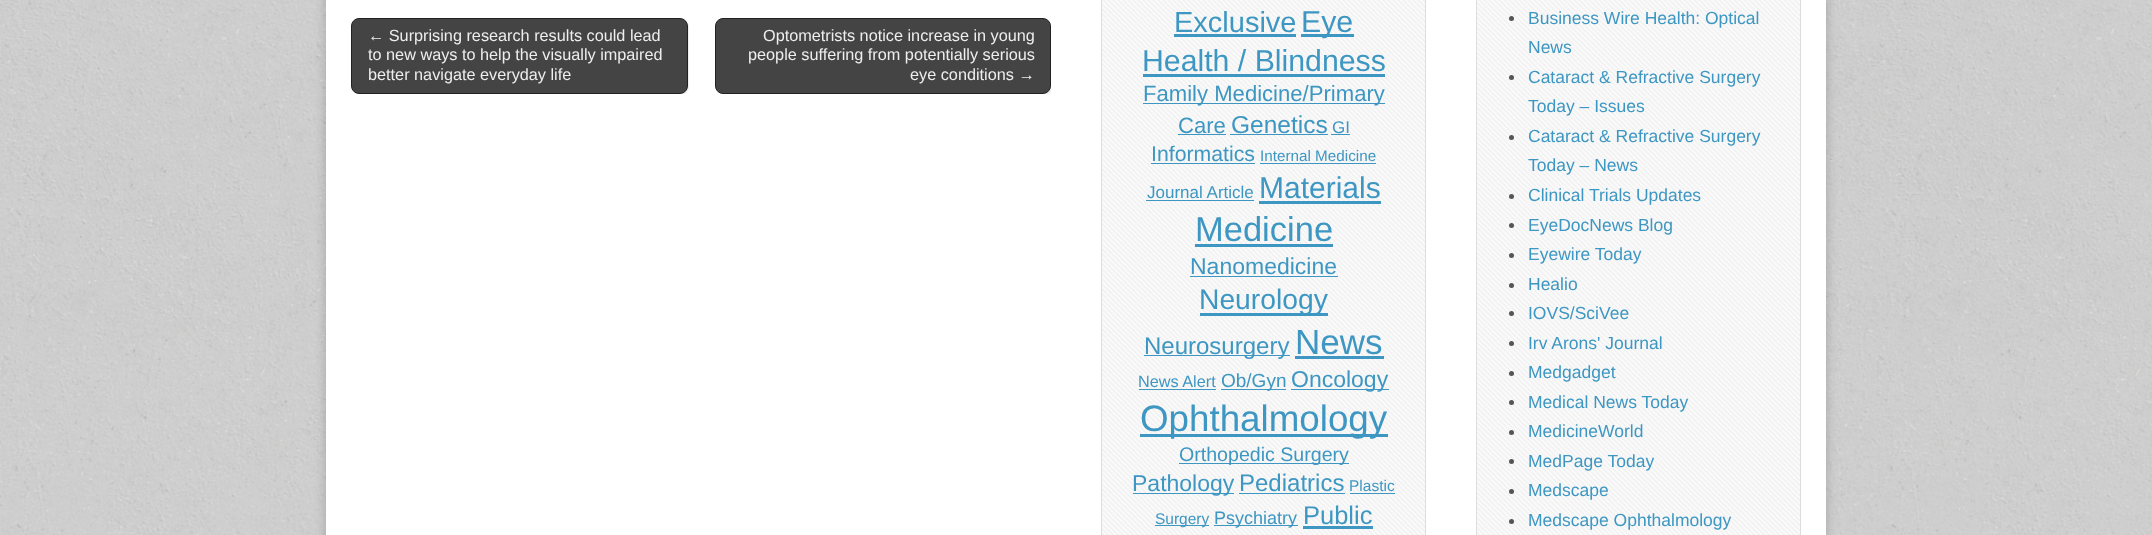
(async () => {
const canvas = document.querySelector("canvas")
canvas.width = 2152
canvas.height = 535
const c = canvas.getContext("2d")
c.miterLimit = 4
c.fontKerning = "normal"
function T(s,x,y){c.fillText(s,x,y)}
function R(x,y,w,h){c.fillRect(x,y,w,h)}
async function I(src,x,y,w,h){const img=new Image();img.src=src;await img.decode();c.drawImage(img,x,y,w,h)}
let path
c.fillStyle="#fff"
R(0,0,2152,535)
await I("1.png",0,0,2152,535)
c.fillStyle="#00000033"
c.filter="blur(6px)"
c.beginPath()
c.rect(326,-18,1500,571)
c.fill()
c.filter="none"
c.fillStyle="#fff"
R(326,0,1500,535)
c.save()
c.beginPath()
c.rect(351,18,700,76)
c.clip()
c.fillStyle="#eee"
path = new Path2D("M356 93c1 1 3 2 5 2h320c4 0 8-4 8-8v-60c0-2-1-4-3-6c1 1 2 3 2 4v61c0 4-4 8-8 8h-321z")
c.fill(path)
c.restore()
c.fillStyle="#444"
c.beginPath()
c.roundRect(351.5,18.5,336,75,7.5)
c.fill()
c.strokeStyle="#222"
c.stroke()
c.font="16.25px Liberation Sans"
c.fillStyle="#eee"
T("← Surprising research results could lead",368,41)
T("to new ways to help the visually impaired",368,60)
T("better navigate everyday life",368,80)
c.save()
c.beginPath()
c.rect(351,18,700,76)
c.clip()
path = new Path2D("M718 92c1 2 4 3 6 3h321c4 0 8-4 8-8v-60c0-3-1-5-3-6c1 1 1 2 1 4v61c0 4-3 8-7 8h-322c-1 0-3-1-4-2z")
c.fill(path)
c.restore()
c.fillStyle="#444"
c.beginPath()
c.roundRect(715.5,18.5,335,75,7.5)
c.fill()
c.stroke()
c.fillStyle="#eee"
T("Optometrists notice increase in young",763,41)
T("people suffering from potentially serious",748,60)
T("eye conditions →",910,80)
await I("2.png",1102,0,323,535)
c.strokeStyle="#ddd"
c.strokeRect(1101.5,-.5,324,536)
c.font="29px Liberation Sans"
c.fillStyle="#3d97c2"
T("Exclusive",1174,32)
R(1174,34,122,3)
R(1301,34,53,3)
c.font="30.25px Liberation Sans"
T("Eye",1301,32)
T("Health / Blindness",1142,71)
R(1143,74,242,3)
R(1143,103,242,1)
c.font="22.1px Liberation Sans"
T("Family Medicine/Primary",1143,101)
T("Care",1178,133)
R(1178,134,48,1)
c.font="24.5px Liberation Sans"
T("Genetics",1231,133)
R(1230,134,98,1)
c.font="17px Liberation Sans"
T("GI",1332,133)
R(1331,134,19,1)
c.font="21.25px Liberation Sans"
T("Informatics",1151,161)
R(1151,163,104,1)
c.font="15.25px Liberation Sans"
T("Internal Medicine",1260,161)
R(1260,163,116,1)
c.font="17px Liberation Sans"
T("Journal Article",1147,198)
R(1146,200,108,1)
c.font="30px Liberation Sans"
T("Materials",1259,198)
R(1259,201,122,3)
c.font="34.5px Liberation Sans"
T("Medicine",1195,241)
R(1195,244,138,3)
c.font="23px Liberation Sans"
T("Nanomedicine",1190,274)
R(1190,276,148,1)
R(1200,313,128,3)
c.font="28.25px Liberation Sans"
T("Neurology",1199,309)
R(1144,355,146,1)
c.font="24px Liberation Sans"
T("Neurosurgery",1144,354)
c.font="35px Liberation Sans"
T("News",1295,354)
R(1295,356,89,3)
c.font="16.25px Liberation Sans"
T("News Alert",1138,387)
R(1139,389,77,1)
R(1221,389,65,1)
c.font="19px Liberation Sans"
T("Ob/Gyn",1221,387)
R(1291,389,98,1)
c.font="23px Liberation Sans"
T("Oncology",1291,387)
R(1140,434,248,3)
c.font="36.75px Liberation Sans"
T("Ophthalmology",1140,431)
R(1179,463,170,1)
c.font="19.6px Liberation Sans"
T("Orthopedic Surgery",1179,461)
R(1133,493,101,1)
c.font="23px Liberation Sans"
T("Pathology",1132,491)
c.font="24px Liberation Sans"
T("Pediatrics",1239,491)
R(1239,493,106,1)
c.font="15.5px Liberation Sans"
T("Plastic",1349,491)
R(1350,493,45,1)
R(1155,525,54,1)
T("Surgery",1155,524)
R(1214,525,84,1)
c.font="18px Liberation Sans"
T("Psychiatry",1214,524)
c.font="25.5px Liberation Sans"
T("Public",1303,524)
R(1303,526,70,3)
await I("3.png",1477,0,323,535)
c.strokeRect(1476.5,-.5,324,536)
c.fillStyle="#555"
c.beginPath()
c.arc(1511.5,18.5,2.5,0,7)
c.fill()
c.font="17.5px Liberation Sans"
c.fillStyle="#3d97c2"
T("Business Wire Health: Optical",1528,24)
T("News",1528,53)
c.fillStyle="#555"
c.beginPath()
c.arc(1511.5,77.5,2.5,0,7)
c.fill()
c.fillStyle="#3d97c2"
T("Cataract & Refractive Surgery",1528,83)
T("Today – Issues",1528,112)
c.fillStyle="#555"
c.beginPath()
c.arc(1511.5,137.5,2.5,0,7)
c.fill()
c.fillStyle="#3d97c2"
T("Cataract & Refractive Surgery",1528,142)
T("Today – News",1528,171)
c.fillStyle="#555"
c.beginPath()
c.arc(1511.5,196.5,2.5,0,7)
c.fill()
c.fillStyle="#3d97c2"
T("Clinical Trials Updates",1528,201)
c.fillStyle="#555"
c.beginPath()
c.arc(1511.5,225.5,2.5,0,7)
c.fill()
c.fillStyle="#3d97c2"
T("EyeDocNews Blog",1528,231)
c.fillStyle="#555"
c.beginPath()
c.arc(1511.5,255.5,2.5,0,7)
c.fill()
c.fillStyle="#3d97c2"
T("Eyewire Today",1528,260)
c.fillStyle="#555"
c.beginPath()
c.arc(1511.5,285.5,2.5,0,7)
c.fill()
c.fillStyle="#3d97c2"
T("Healio",1528,290)
c.fillStyle="#555"
c.beginPath()
c.arc(1511.5,313.5,2.5,0,7)
c.fill()
c.fillStyle="#3d97c2"
T("IOVS/SciVee",1528,319)
c.fillStyle="#555"
c.beginPath()
c.arc(1511.5,343.5,2.5,0,7)
c.fill()
c.fillStyle="#3d97c2"
T("Irv Arons' Journal",1528,349)
c.fillStyle="#555"
c.beginPath()
c.arc(1511.5,373.5,2.5,0,7)
c.fill()
c.fillStyle="#3d97c2"
T("Medgadget",1528,378)
c.fillStyle="#555"
c.beginPath()
c.arc(1511.5,402.5,2.5,0,7)
c.fill()
c.fillStyle="#3d97c2"
T("Medical News Today",1528,408)
c.fillStyle="#555"
c.beginPath()
c.arc(1511.5,432.5,2.5,0,7)
c.fill()
c.fillStyle="#3d97c2"
T("MedicineWorld",1528,437)
c.fillStyle="#555"
c.beginPath()
c.arc(1511.5,461.5,2.5,0,7)
c.fill()
c.fillStyle="#3d97c2"
T("MedPage Today",1528,467)
c.fillStyle="#555"
c.beginPath()
c.arc(1511.5,491.5,2.5,0,7)
c.fill()
c.fillStyle="#3d97c2"
T("Medscape",1528,496)
c.fillStyle="#555"
c.beginPath()
c.arc(1511.5,521.5,2.5,0,7)
c.fill()
c.fillStyle="#3d97c2"
T("Medscape Ophthalmology",1528,526)
})()
